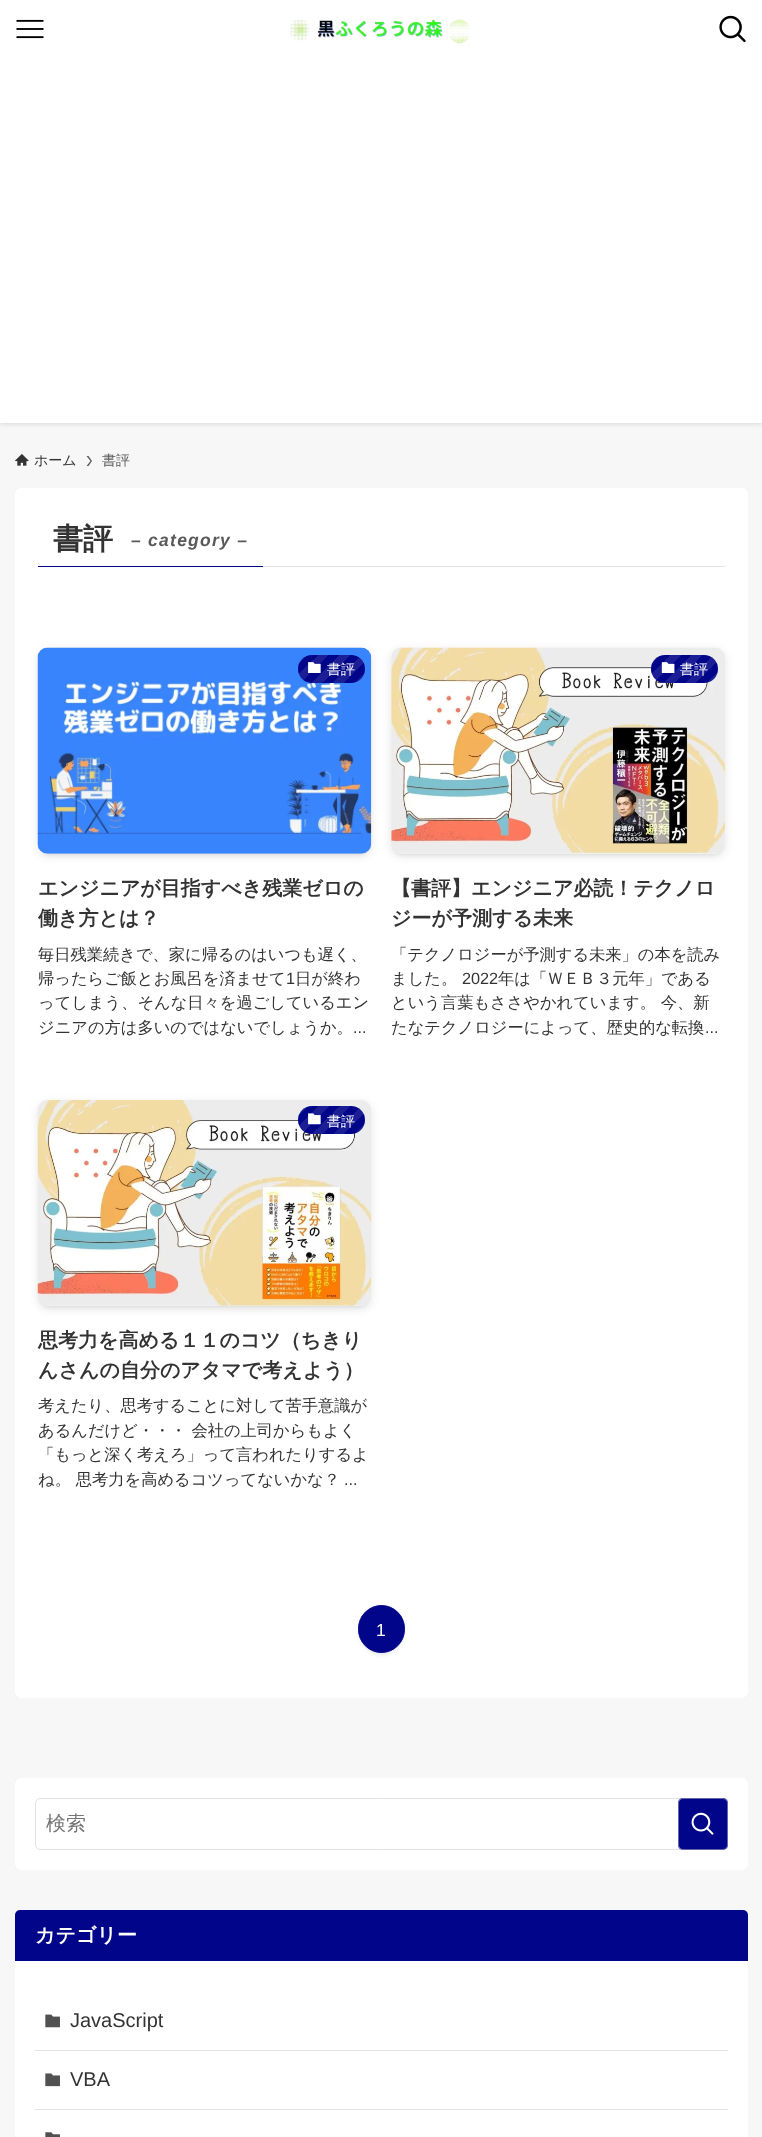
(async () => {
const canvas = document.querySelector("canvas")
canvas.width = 762
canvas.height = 2137
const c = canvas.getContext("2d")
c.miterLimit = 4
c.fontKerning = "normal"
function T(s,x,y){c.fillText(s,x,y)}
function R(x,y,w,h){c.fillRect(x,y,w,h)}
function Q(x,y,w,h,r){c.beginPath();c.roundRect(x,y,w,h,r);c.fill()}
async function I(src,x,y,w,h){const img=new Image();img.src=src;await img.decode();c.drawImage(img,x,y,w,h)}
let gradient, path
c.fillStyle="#f7f7f7"
R(0,0,762,2137)
c.fillStyle="#0000001f"
c.filter="blur(2.5px)"
c.beginPath()
c.rect(0,1,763,423)
c.fill()
c.filter="none"
c.fillStyle="#fff"
R(0,0,762,423)
await I("1.png",16,19,28,20)
await I("2.png",290,17,180,27)
await I("3.png",719,15,27,28)
await I("4.png",15,454,14,12)
c.font="500 14px WenQuanYi Zen Hei"
c.fillStyle="#333"
T("ホーム",34,465)
c.fillStyle="#5a5a5a"
path = new Path2D("M88.5 456h-2l4 5l-4 5h2l3.5-5z")
c.fill(path)
T("書評",102,465)
c.fillStyle="#0000001f"
c.filter="blur(0.5px)"
c.beginPath()
c.roundRect(15,488,733,1210,5)
c.fill()
c.filter="none"
c.fillStyle="#fff"
Q(15,488,733,1210,5)
c.fillStyle="#e3e3e3"
R(263,566,462,1)
c.fillStyle="#010589"
R(38,566,225,1)
c.font="bold 30px WenQuanYi Zen Hei"
c.fillStyle="#333"
T("書評",53,549)
c.letterSpacing="1.25px"
c.font="italic bold 17.5px Liberation Sans"
c.fillStyle="#5a5a5a"
T("– category –",131,546)
c.fillStyle="#0000001a"
c.filter="blur(2.5px)"
c.beginPath()
c.roundRect(43,658,323,196,5)
c.fill()
c.filter="none"
c.filter="blur(5px)"
c.beginPath()
c.roundRect(38,650,333,206,10)
c.fill()
c.filter="none"
await I("5.png",37,647,335,207)
c.fillStyle="#010589"
Q(298,655,67,28,14)
gradient = c.createLinearGradient(355,693,302,639)
gradient.addColorStop(0,"#ffffff1a")
gradient.addColorStop(.1,"#ffffff1a")
gradient.addColorStop(.1,"#ffffff00")
gradient.addColorStop(.2,"#ffffff00")
gradient.addColorStop(.2,"#ffffff1a")
gradient.addColorStop(.3,"#ffffff1a")
gradient.addColorStop(.3,"#ffffff00")
gradient.addColorStop(.4,"#ffffff00")
gradient.addColorStop(.4,"#ffffff1a")
gradient.addColorStop(.5,"#ffffff1a")
gradient.addColorStop(.5,"#ffffff00")
gradient.addColorStop(.6,"#ffffff00")
gradient.addColorStop(.6,"#ffffff1a")
gradient.addColorStop(.7,"#ffffff1a")
gradient.addColorStop(.7,"#ffffff00")
gradient.addColorStop(.8,"#ffffff00")
gradient.addColorStop(.8,"#ffffff1a")
gradient.addColorStop(.9,"#ffffff1a")
gradient.addColorStop(.9,"#ffffff00")
gradient.addColorStop(1,"#00000000")
c.fillStyle = gradient
Q(298,655,67,28,14)
await I("6.png",308,662,13,11)
c.letterSpacing="0px"
c.font="500 14px WenQuanYi Zen Hei"
c.fillStyle="#fff"
T("書評",327,674)
c.font="bold 20px WenQuanYi Zen Hei"
c.fillStyle="#333"
T("エンジニアが目指すべき残業ゼロの",38,895)
T("働き方とは？",38,925)
c.font="500 16.25px WenQuanYi Zen Hei"
T("毎日残業続きで、家に帰るのはいつも遅く、",38,960)
T("帰ったらご飯とお風呂を済ませて",38,984)
c.font="16.25px Liberation Sans"
T("1",286,984)
c.font="500 16.25px WenQuanYi Zen Hei"
T("日が終わ",295,984)
T("ってしまう、そんな日々を過ごしているエン",38,1008)
T("ジニアの方は多いのではないでしょうか。",38,1033)
c.font="16.25px Liberation Sans"
T("...",353,1033)
c.fillStyle="#0000001a"
c.filter="blur(2.5px)"
c.beginPath()
c.roundRect(396,658,324,196,5)
c.fill()
c.filter="none"
c.filter="blur(5px)"
c.beginPath()
c.roundRect(391,650,334,206,10)
c.fill()
c.filter="none"
await I("7.png",391,647,334,207)
c.fillStyle="#010589"
Q(651,655,67,28,14)
gradient = c.createLinearGradient(708,692,655,639)
gradient.addColorStop(0,"#ffffff1a")
gradient.addColorStop(.1,"#ffffff1a")
gradient.addColorStop(.1,"#ffffff00")
gradient.addColorStop(.2,"#ffffff00")
gradient.addColorStop(.2,"#ffffff1a")
gradient.addColorStop(.3,"#ffffff1a")
gradient.addColorStop(.3,"#ffffff00")
gradient.addColorStop(.4,"#ffffff00")
gradient.addColorStop(.4,"#ffffff1a")
gradient.addColorStop(.5,"#ffffff1a")
gradient.addColorStop(.5,"#ffffff00")
gradient.addColorStop(.6,"#ffffff00")
gradient.addColorStop(.6,"#ffffff1a")
gradient.addColorStop(.7,"#ffffff1a")
gradient.addColorStop(.7,"#ffffff00")
gradient.addColorStop(.8,"#ffffff00")
gradient.addColorStop(.8,"#ffffff1a")
gradient.addColorStop(.9,"#ffffff1a")
gradient.addColorStop(.9,"#ffffff00")
gradient.addColorStop(1,"#00000000")
c.fillStyle = gradient
Q(651,655,67,28,14)
await I("8.png",661,662,14,11)
c.font="500 14px WenQuanYi Zen Hei"
c.fillStyle="#fff"
T("書評",680,674)
c.font="bold 20px WenQuanYi Zen Hei"
c.fillStyle="#333"
T("【書評】エンジニア必読！テクノロ",391,895)
T("ジーが予測する未来",391,925)
c.font="500 16.25px WenQuanYi Zen Hei"
T("「テクノロジーが予測する未来」の本を読み",391,960)
T("ました。",391,984)
c.font="16.25px Liberation Sans"
T("2022",462,984)
c.font="500 16.25px WenQuanYi Zen Hei"
T("年は「ＷＥＢ３元年」である",498,984)
T("という言葉もささやかれています。 今、新",391,1008)
T("たなテクノロジーによって、歴史的な転換",391,1033)
c.font="16.25px Liberation Sans"
T("...",705,1033)
c.fillStyle="#0000001a"
c.filter="blur(2.5px)"
c.beginPath()
c.roundRect(43,1110,323,196,5)
c.fill()
c.filter="none"
c.filter="blur(5px)"
c.beginPath()
c.roundRect(38,1103,333,206,10)
c.fill()
c.filter="none"
await I("9.png",37,1100,335,206)
c.fillStyle="#010589"
Q(298,1106,67,28,14)
gradient = c.createLinearGradient(355,1144,302,1091)
gradient.addColorStop(0,"#ffffff1a")
gradient.addColorStop(.1,"#ffffff1a")
gradient.addColorStop(.1,"#ffffff00")
gradient.addColorStop(.2,"#ffffff00")
gradient.addColorStop(.2,"#ffffff1a")
gradient.addColorStop(.3,"#ffffff1a")
gradient.addColorStop(.3,"#ffffff00")
gradient.addColorStop(.4,"#ffffff00")
gradient.addColorStop(.4,"#ffffff1a")
gradient.addColorStop(.5,"#ffffff1a")
gradient.addColorStop(.5,"#ffffff00")
gradient.addColorStop(.6,"#ffffff00")
gradient.addColorStop(.6,"#ffffff1a")
gradient.addColorStop(.7,"#ffffff1a")
gradient.addColorStop(.7,"#ffffff00")
gradient.addColorStop(.8,"#ffffff00")
gradient.addColorStop(.8,"#ffffff1a")
gradient.addColorStop(.9,"#ffffff1a")
gradient.addColorStop(.9,"#ffffff00")
gradient.addColorStop(1,"#00000000")
c.fillStyle = gradient
Q(298,1106,67,28,14)
await I("10.png",308,1113,13,12)
c.font="500 14px WenQuanYi Zen Hei"
c.fillStyle="#fff"
T("書評",327,1126)
c.font="bold 20px WenQuanYi Zen Hei"
c.fillStyle="#333"
T("思考力を高める１１のコツ（ちきり",38,1347)
T("んさんの自分のアタマで考えよう）",38,1377)
c.font="500 16.25px WenQuanYi Zen Hei"
T("考えたり、思考することに対して苦手意識が",38,1411)
T("あるんだけど・・・ 会社の上司からもよく",38,1436)
T("「もっと深く考えろ」って言われたりするよ",38,1460)
T("ね。 思考力を高めるコツってないかな？",38,1485)
c.font="16.25px Liberation Sans"
T("...",344,1485)
c.fillStyle="#0000001a"
c.filter="blur(2.5px)"
c.beginPath()
c.roundRect(363,1615,37,38,18.5)
c.fill()
c.filter="none"
c.fillStyle="#0000000d"
c.filter="blur(2.5px)"
c.beginPath()
c.roundRect(358,1608,47,47,23.5)
c.fill()
c.filter="none"
c.fillStyle="#010589"
c.beginPath()
c.roundRect(358.5,1605.5,46,47,23)
c.fill()
c.strokeStyle="#010589"
c.stroke()
c.font="17.5px Liberation Sans"
c.fillStyle="#fff"
T("1",376,1636)
c.fillStyle="#0000001f"
c.filter="blur(0.5px)"
c.beginPath()
c.roundRect(15,1778,733,92,5)
c.fill()
c.filter="none"
c.fillStyle="#fff"
Q(15,1778,733,92,5)
c.beginPath()
c.roundRect(35.5,1798.5,692,51,4.5)
c.strokeStyle="#e3e3e3"
c.stroke()
c.font="500 20px WenQuanYi Zen Hei"
c.fillStyle="#757575"
T("検索",46,1830)
c.fillStyle="#010589"
Q(678,1798,50,52,5)
c.beginPath()
c.roundRect(678.5,1798.5,49,51,4.5)
c.strokeStyle="#c7c7c780"
c.stroke()
await I("11.png",691,1812,23,23)
c.fillStyle="#0000001f"
c.filter="blur(0.5px)"
c.beginPath()
c.roundRect(15,1910,733,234,5)
c.fill()
c.filter="none"
c.fillStyle="#fff"
Q(15,1910,733,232,5)
c.fillStyle="#010589"
c.beginPath()
c.roundRect(15,1910,733,51,[5,5,0,0])
c.fill()
c.font="bold 20px WenQuanYi Zen Hei"
c.fillStyle="#fff"
T("カテゴリー",35,1942)
c.fillStyle="#e3e3e3"
R(35,2050,693,1)
await I("12.png",45,2014,15,14)
c.font="20px Liberation Sans"
c.fillStyle="#333"
T("JavaScript",70,2027)
c.fillStyle="#e3e3e3"
R(35,2109,693,1)
await I("13.png",45,2073,15,14)
c.fillStyle="#333"
T("VBA",70,2086)
await I("14.png",45,2132,15,5)
})()
